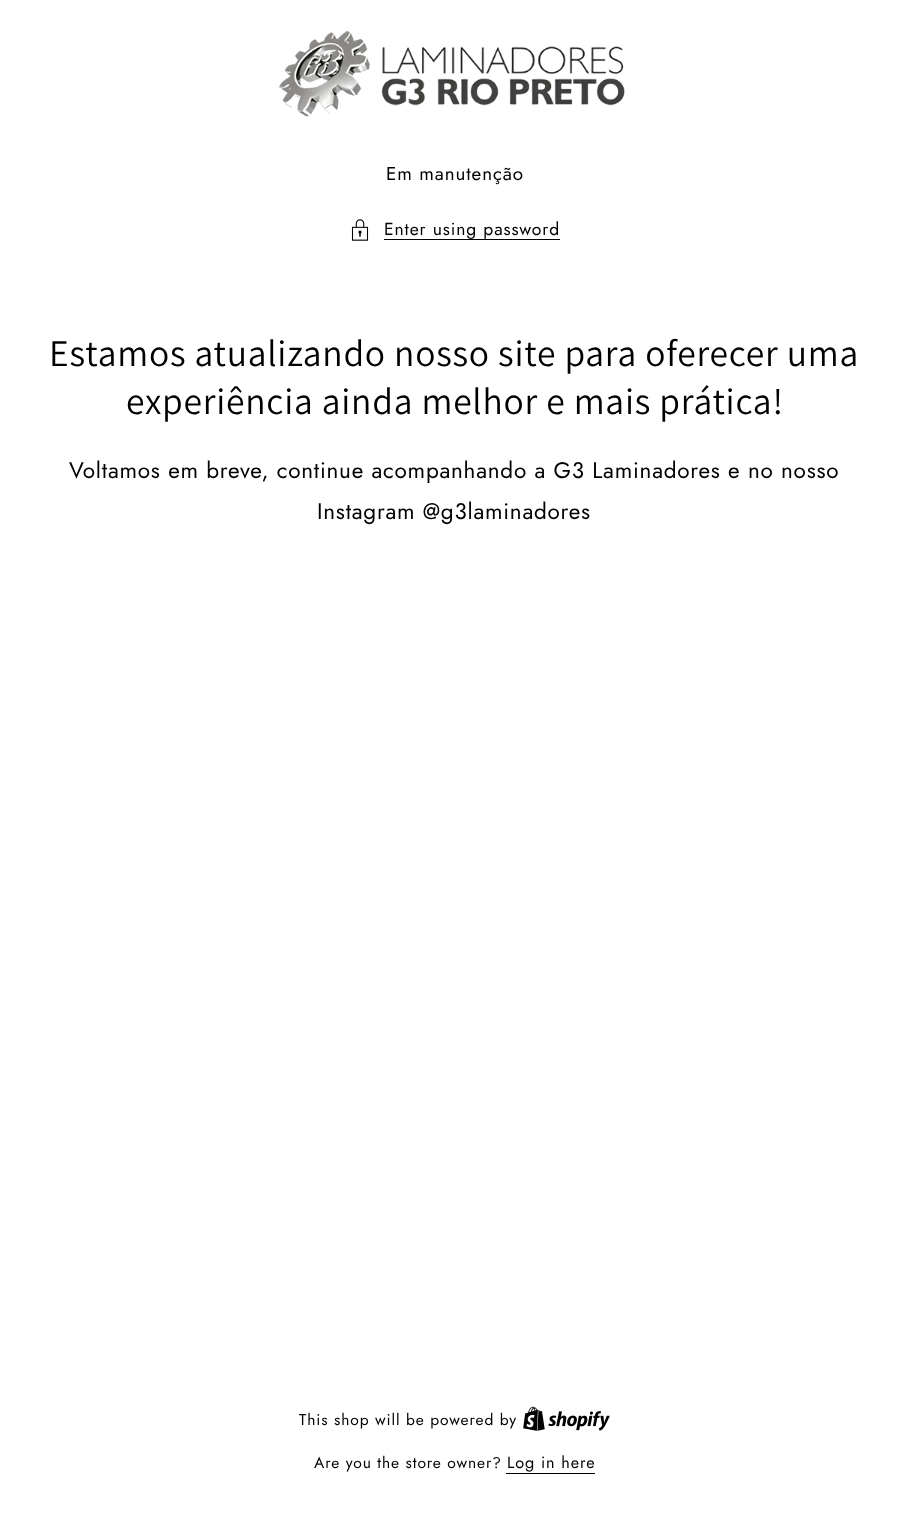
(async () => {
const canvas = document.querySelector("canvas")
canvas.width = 908
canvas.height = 1527
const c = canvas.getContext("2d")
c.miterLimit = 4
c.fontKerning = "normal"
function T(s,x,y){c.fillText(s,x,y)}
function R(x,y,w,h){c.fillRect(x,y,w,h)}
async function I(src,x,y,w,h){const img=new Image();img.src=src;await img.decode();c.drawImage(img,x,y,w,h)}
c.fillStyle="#fff"
R(0,0,908,1527)
await I("1.png",278,30,347,87)
c.letterSpacing="0.9px"
c.font="18.75px Jost"
c.fillStyle="#000"
T("Em manutenção",386,180)
await I("2.png",351,219,18,22)
c.font="17.5px Jost"
T("Enter using password",384,235)
R(384,239,176,1)
c.letterSpacing="0.75px"
c.font="37.5px Assistant"
T("Estamos atualizando nosso site para oferecer uma",49,366)
T("experiência ainda melhor e mais prática!",126,414)
c.font="22.5px Jost"
T("Voltamos em breve, continue acompanhando a G3 Laminadores e no nosso",69,478)
T("Instagram @g3laminadores",317,519)
c.letterSpacing="0.9px"
c.font="15.6px Jost"
T("This shop will be powered by",299,1425)
await I("3.png",523,1406,87,25)
T("Are you the store owner?",314,1468)
c.font="16.25px Jost"
T("Log in here",507,1468)
R(506,1473,89,1)
})()
